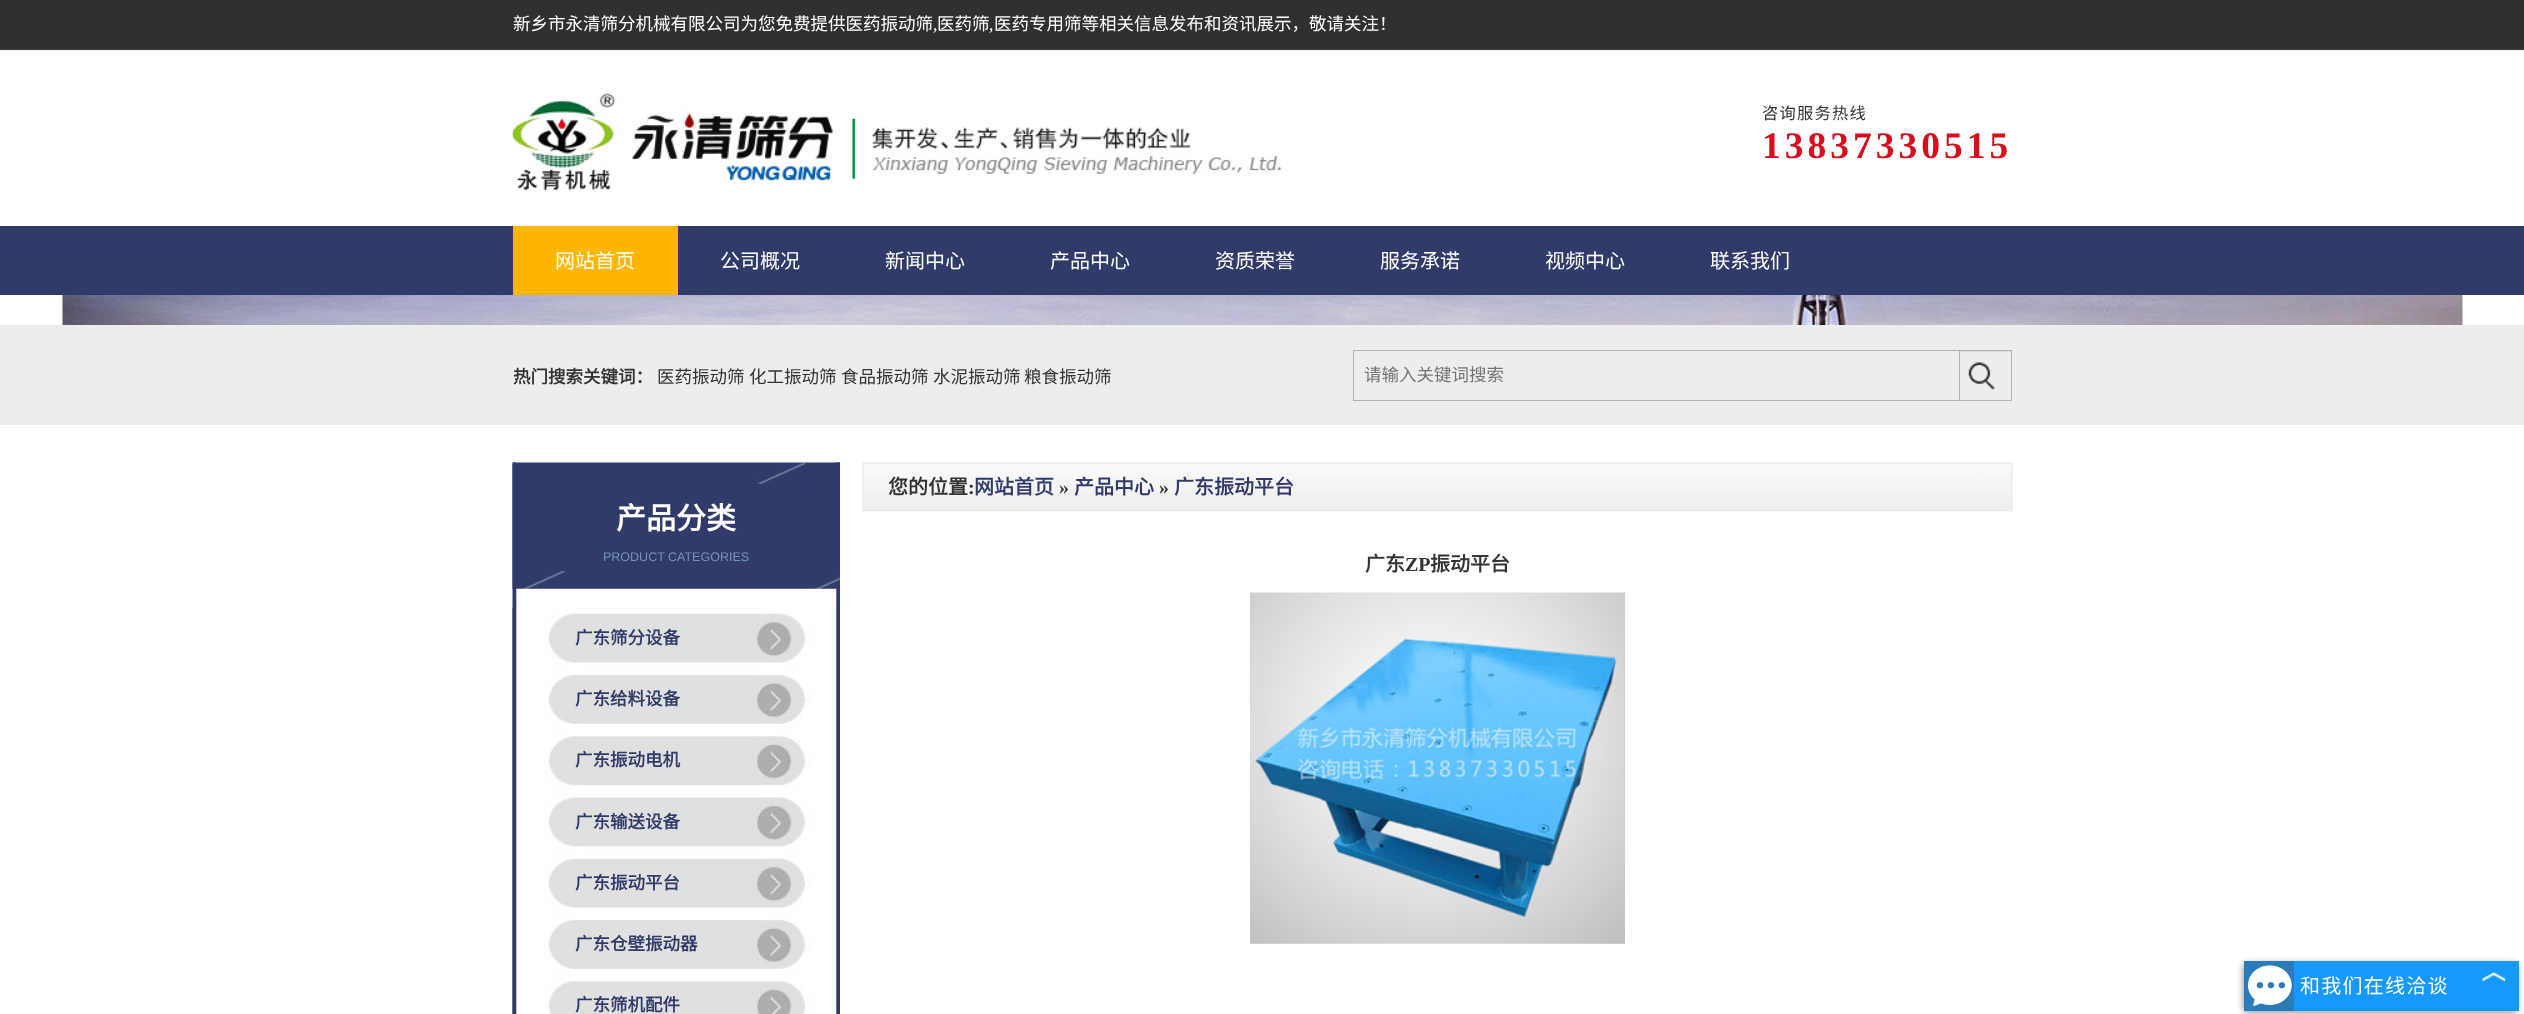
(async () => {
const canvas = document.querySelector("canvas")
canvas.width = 2524
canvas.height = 1014
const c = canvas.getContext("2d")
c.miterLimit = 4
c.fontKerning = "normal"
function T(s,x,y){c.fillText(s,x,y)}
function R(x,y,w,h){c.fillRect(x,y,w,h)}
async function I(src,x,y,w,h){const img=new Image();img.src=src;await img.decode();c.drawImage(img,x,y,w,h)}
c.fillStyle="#fff"
R(0,0,2524,1014)
await I("1.png",0,0,2524,226)
c.font="17.5px Noto Sans CJK SC"
T("新乡市永清筛分机械有限公司为您免费提供医药振动筛",513,30)
c.font="17.5px Liberation Serif"
T(",",933,30)
c.font="17.5px Noto Sans CJK SC"
T("医药筛",937,30)
c.font="17.5px Liberation Serif"
T(",",989,30)
c.font="17.5px Noto Sans CJK SC"
T("医药专用筛等相关信息发布和资讯展示，敬请关注！",994,30)
await I("2.png",512,93,770,98)
c.letterSpacing="1.25px"
c.font="16.25px Noto Sans CJK SC"
c.fillStyle="#333"
T("咨询服务热线",1762,119)
c.letterSpacing="4px"
c.font="bold 37.5px Liberation Serif"
c.fillStyle="#d70e1e"
T("13837330515",1762,158)
c.fillStyle="#303b69"
R(0,226,2524,69)
c.fillStyle="#ffb600"
R(513,226,165,69)
c.letterSpacing="0px"
c.font="20px Noto Sans CJK SC"
c.fillStyle="#fff"
T("网站首页",555,268)
T("公司概况",720,268)
T("新闻中心",885,268)
T("产品中心",1050,268)
T("资质荣誉",1215,268)
T("服务承诺",1380,268)
T("视频中心",1545,268)
T("联系我们",1710,268)
await I("3.png",62,295,2401,30)
c.fillStyle="#ededed"
R(0,325,2524,100)
c.font="bold 17.5px Noto Sans CJK SC"
c.fillStyle="#333"
T("热门搜索关键词：",513,383)
c.font="17.5px Noto Sans CJK SC"
T("医药振动筛",657,383)
T("化工振动筛",749,383)
T("食品振动筛",841,383)
T("水泥振动筛",933,383)
T("粮食振动筛",1024,383)
c.strokeStyle="#b2b2b2"
c.strokeRect(1353.5,350.5,606,50)
c.fillStyle="#757575"
T("请输入关键词搜索",1364,381)
c.fillStyle="#b2b2b2"
R(2011,350,1,51)
await I("4.png",1960,350,51,51)
await I("5.png",512,462,328,552)
await I("6.png",512,462,328,127)
c.font="bold 30px Noto Sans CJK SC"
c.fillStyle="#fff"
T("产品分类",616,529)
c.font="12.5px Liberation Sans"
c.fillStyle="#7494b8"
T("PRODUCT CATEGORIES",603,561)
await I("7.png",512,607,325,62)
c.font="bold 17.5px Noto Sans CJK SC"
c.fillStyle="#303b69"
T("广东筛分设备",575,644)
await I("8.png",512,668,325,62)
T("广东给料设备",575,705)
await I("9.png",512,730,325,62)
T("广东振动电机",575,766)
await I("10.png",512,791,325,62)
T("广东输送设备",575,828)
await I("11.png",512,852,325,62)
T("广东振动平台",575,889)
await I("8.png",512,913,325,62)
T("广东仓壁振动器",575,950)
await I("12.png",512,975,325,39)
T("广东筛机配件",575,1011)
await I("13.png",862,462,1151,50)
c.font="bold 20px Noto Sans CJK SC"
c.fillStyle="#333"
T("您的位置",888,494)
c.font="bold 20px Liberation Serif"
T(":",968,494)
c.font="bold 20px Noto Sans CJK SC"
c.fillStyle="#303b69"
T("网站首页",974,494)
c.font="bold 20px Liberation Serif"
c.fillStyle="#333"
T("»",1059,494)
c.font="bold 20px Noto Sans CJK SC"
c.fillStyle="#303b69"
T("产品中心",1074,494)
c.font="bold 20px Liberation Serif"
c.fillStyle="#333"
T("»",1159,494)
c.font="bold 20px Noto Sans CJK SC"
c.fillStyle="#303b69"
T("广东振动平台",1174,494)
c.fillStyle="#333"
T("广东",1365,571)
c.font="bold 20px Liberation Serif"
T("ZP",1405,571)
c.font="bold 20px Noto Sans CJK SC"
T("振动平台",1430,571)
await I("14.png",1250,592,375,352)
c.fillStyle="#00000066"
c.filter="blur(3px)"
c.beginPath()
c.roundRect(2243,963,275,50,5)
c.fill()
c.filter="none"
c.fillStyle="#1798fc"
R(2294,961,225,50)
c.fillStyle="#2a7bb9"
R(2244,961,50,50)
await I("15.png",2247,965,45,41)
c.letterSpacing="1.25px"
c.font="20px Noto Sans CJK SC"
c.fillStyle="#fff"
T("和我们在线洽谈",2300,993)
await I("16.png",2482,972,24,10)
})()
